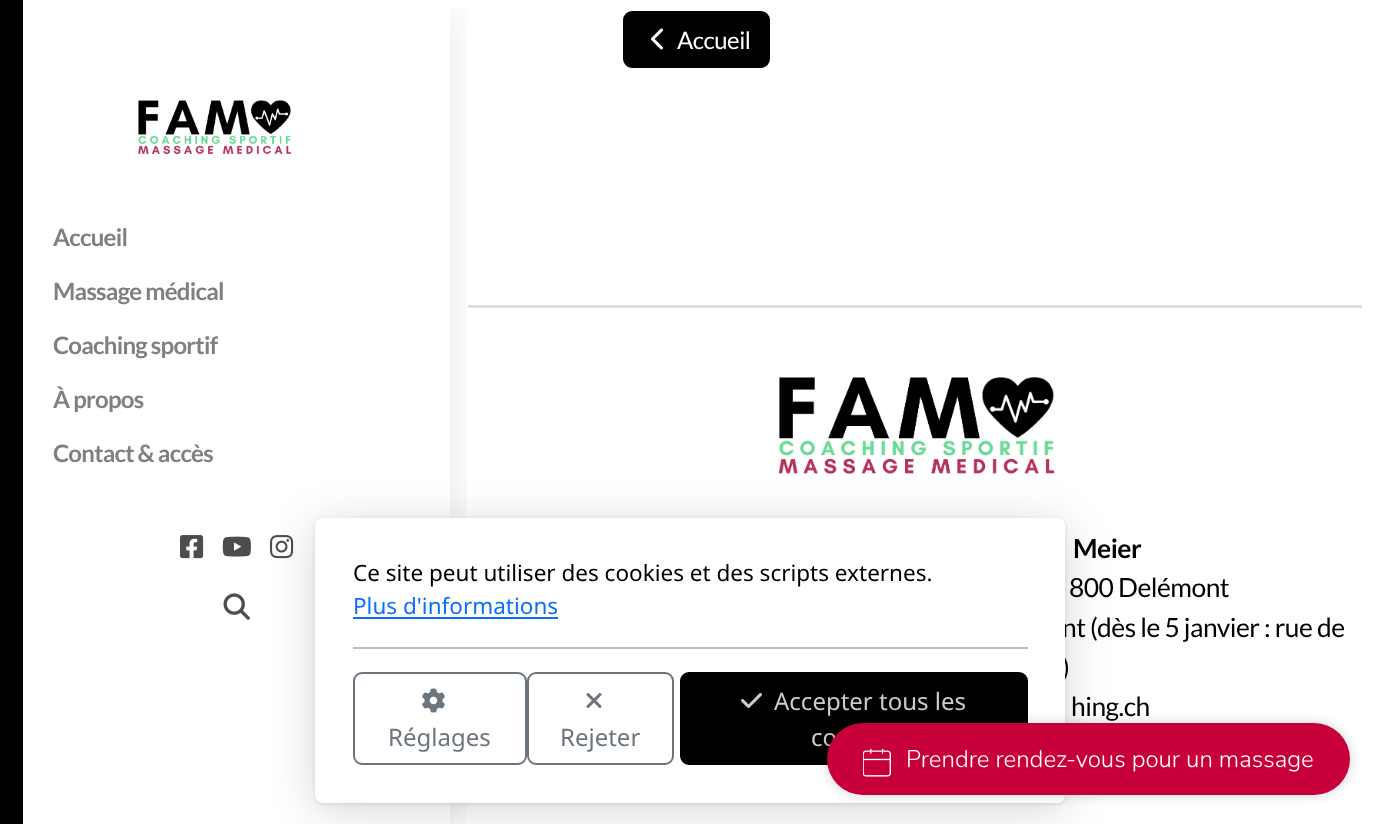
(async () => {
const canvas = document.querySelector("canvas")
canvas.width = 1379
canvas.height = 824
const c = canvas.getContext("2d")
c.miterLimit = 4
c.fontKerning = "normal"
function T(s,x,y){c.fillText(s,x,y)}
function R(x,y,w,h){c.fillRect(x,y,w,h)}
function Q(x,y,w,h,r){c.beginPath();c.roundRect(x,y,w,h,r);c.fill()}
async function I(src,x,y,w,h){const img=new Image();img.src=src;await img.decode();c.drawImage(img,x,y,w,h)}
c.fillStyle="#fff"
R(0,0,1379,824)
c.fillStyle="#000"
c.beginPath()
c.roundRect(624,12,145,55,8)
c.fill()
c.strokeStyle="#000"
c.lineWidth=2
c.stroke()
await I("1.png",651,28,12,22)
c.letterSpacing="-0.5px"
c.font="24px Lato"
c.fillStyle="#fff"
T("Accueil",677,49)
c.save()
c.beginPath()
c.rect(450,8,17,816)
c.clip()
c.fillStyle="#00000017"
c.filter="blur(22px)"
c.beginPath()
c.rect(0,11,450,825)
c.fill()
c.filter="none"
c.restore()
c.fillStyle="#000"
R(0,0,23,824)
await I("2.png",138,100,153,55)
c.letterSpacing="-0.75px"
c.font="bold 24px Lato"
c.fillStyle="#808080"
T("Accueil",53,246)
T("Massage médical",53,300)
T("Coaching sportif",53,354)
T("À propos",53,408)
T("Contact & accès",53,462)
await I("3.png",180,535,24,24)
await I("4.png",222,536,29,21)
await I("5.png",270,535,24,24)
await I("6.png",223,593,27,27)
c.fillStyle="#dedede"
R(468,305,894,3)
await I("7.png",778,377,277,97)
c.letterSpacing="-0.5px"
c.font="bold 26.4px Lato"
c.fillStyle="#000"
T("Meier",1073,558)
c.font="26.4px Lato"
T("800 Delémont",1069,597)
T("nt (dès le 5 janvier : rue de",1062,637)
T(")",1062,677)
T("hing.ch",1071,716)
c.fillStyle="#00000029"
c.filter="blur(22.5px)"
c.beginPath()
c.roundRect(315,525,750,285,8)
c.fill()
c.filter="none"
c.fillStyle="#0000001a"
c.filter="blur(2px)"
c.beginPath()
c.roundRect(315,519,750,285,8)
c.fill()
c.filter="none"
c.fillStyle="#fff"
Q(315,518,750,285,8)
c.letterSpacing="0px"
c.font="22.5px Noto Sans"
c.fillStyle="#000"
T("Ce site peut utiliser des cookies et des scripts externes.",353,581)
c.fillStyle="#0d6efd"
T("Plus d'informations",353,614)
R(353,617,205,2)
c.fillStyle="#bfbfbf"
R(353,647,675,2)
c.beginPath()
c.roundRect(354,673,172,91,8)
c.strokeStyle="#6c757d"
c.stroke()
await I("8.png",422,688,23,25)
c.font="24px Noto Sans"
c.fillStyle="#6c757d"
T("Réglages",388,746)
c.beginPath()
c.roundRect(528,673,145,91,8)
c.stroke()
await I("9.png",586,693,16,15)
T("Rejeter",560,746)
c.fillStyle="#000"
c.beginPath()
c.roundRect(681,673,346,91,8)
c.fill()
c.strokeStyle="#000"
c.stroke()
await I("10.png",741,693,21,15)
c.fillStyle="#ccc"
T("Accepter tous les",774,710)
T("co",811,746)
c.fillStyle="#0000001a"
c.filter="blur(4px)"
c.beginPath()
c.roundRect(824,720,529,78,39)
c.fill()
c.filter="none"
c.fillStyle="#c70039"
Q(827,723,523,72,36)
await I("11.png",863,749,28,28)
c.font="300 24px Nunito"
c.fillStyle="#fff"
T("Prendre rendez-vous pour un massage",906,767)
})()
